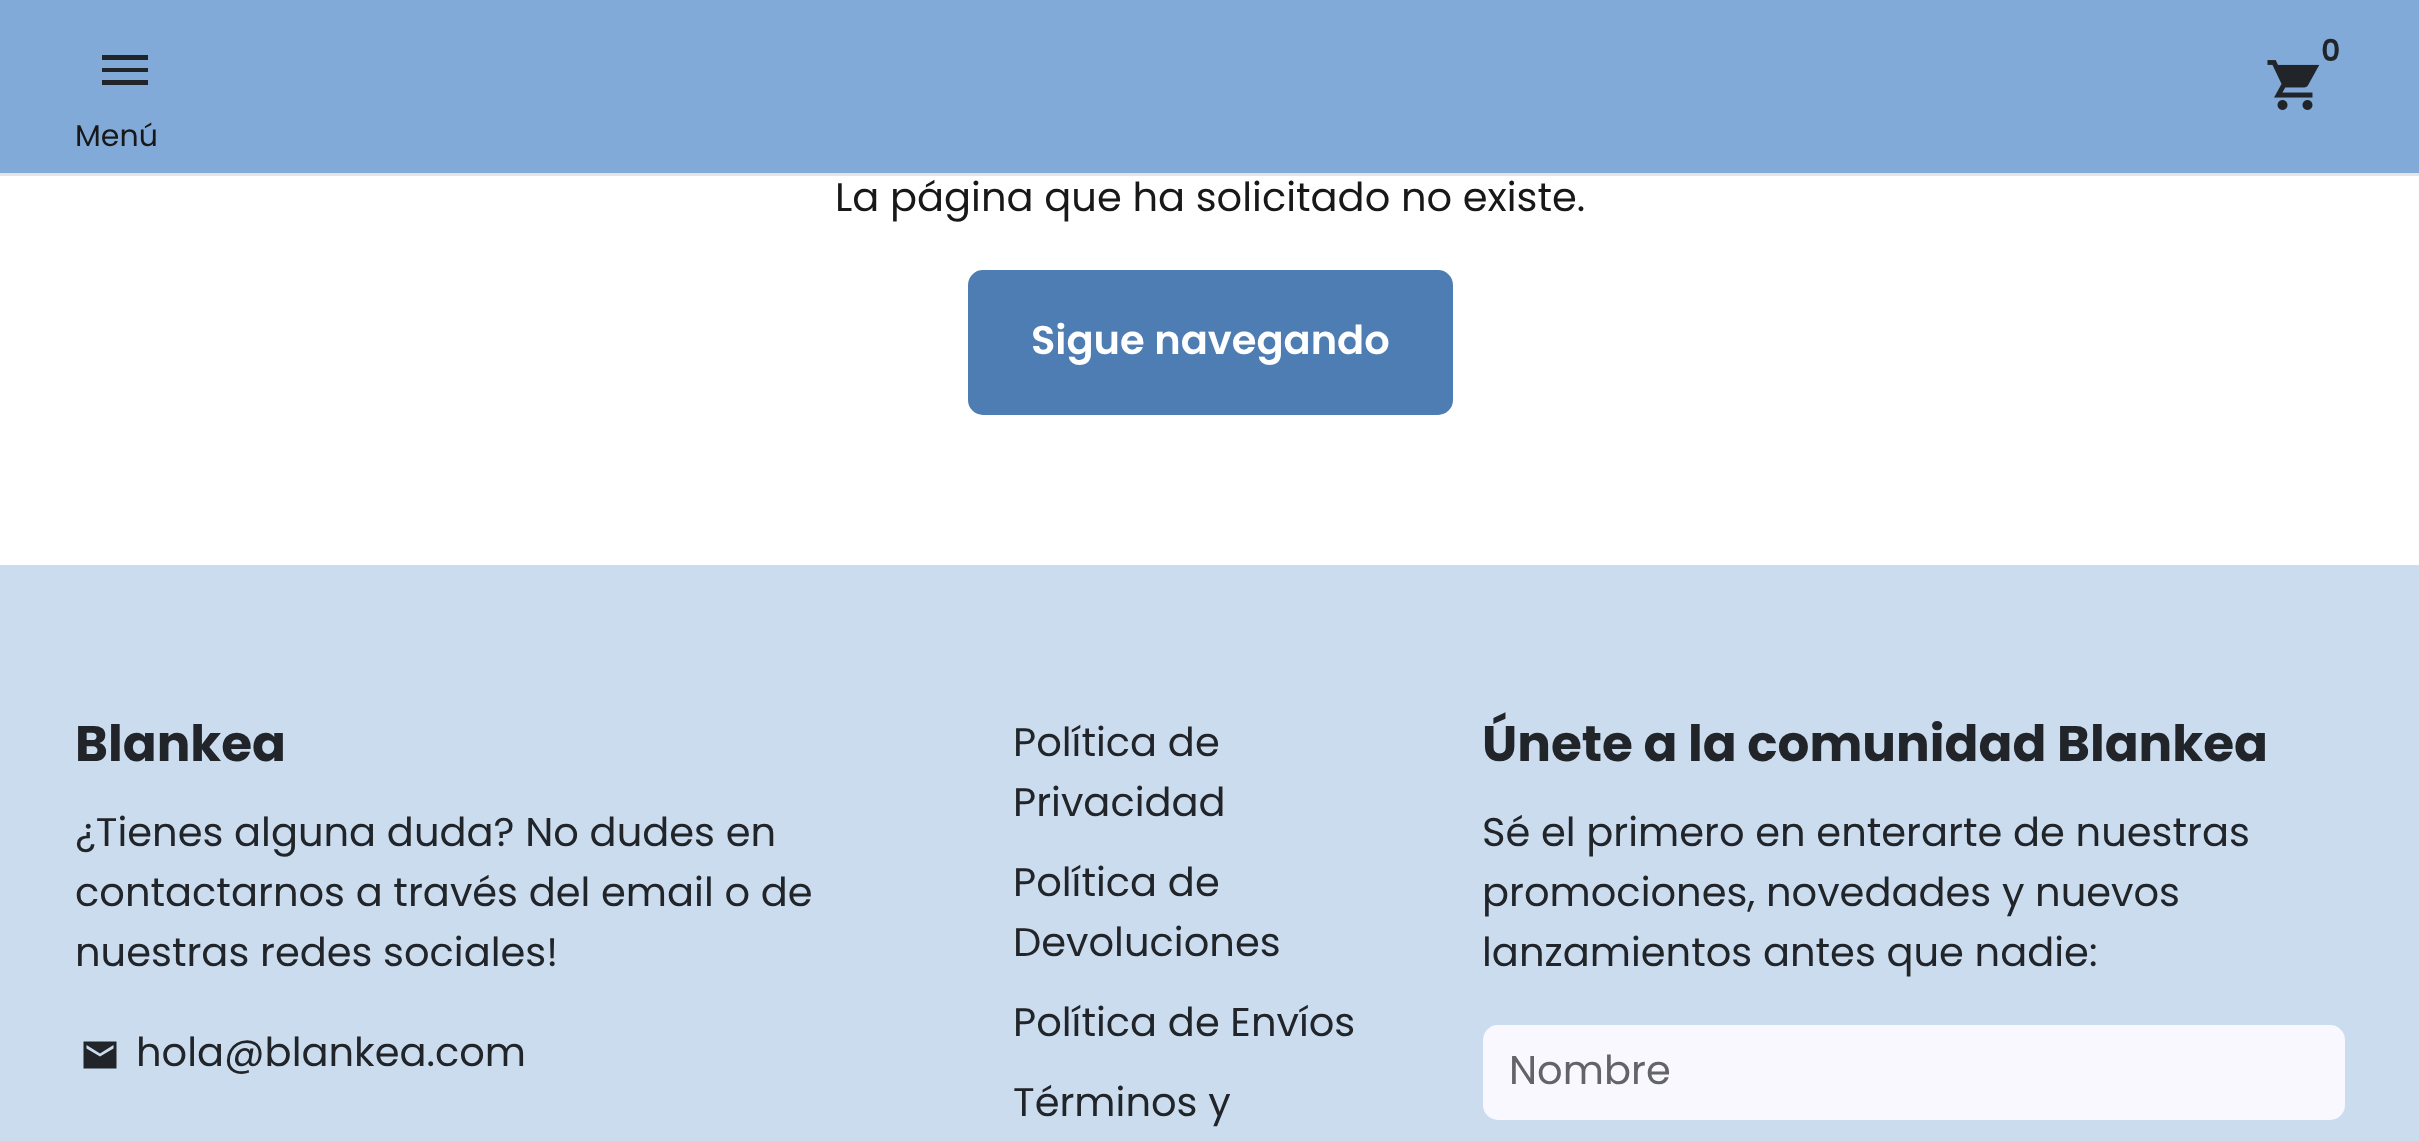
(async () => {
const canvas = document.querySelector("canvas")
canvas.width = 2419
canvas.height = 1141
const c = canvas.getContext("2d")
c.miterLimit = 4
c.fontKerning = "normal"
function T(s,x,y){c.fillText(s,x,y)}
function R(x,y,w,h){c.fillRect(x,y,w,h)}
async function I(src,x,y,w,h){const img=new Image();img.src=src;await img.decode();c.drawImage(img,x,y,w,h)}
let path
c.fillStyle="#fff"
R(0,0,2419,1141)
c.fillStyle="#81aad9"
R(0,0,2419,173)
c.fillStyle="#e5e5e5"
R(0,173,2419,3)
c.font="600 30px Poppins"
c.fillStyle="#212529"
T("0",2321,61)
await I("1.png",2267,60,53,50)
path = new Path2D("M102 85h46v-5h-46zm0-13h46v-4h-46zm0-17v5h46v-5z")
c.fill(path)
c.font="30px Poppins"
c.fillStyle="#181818"
T("Menú",75,146)
c.font="40px Poppins"
T("La página que ha solicitado no existe.",835,211)
c.fillStyle="#4e7db3"
c.beginPath()
c.roundRect(969.5,271.5,482,142,13.5)
c.fill()
c.strokeStyle="#4e7db3"
c.lineWidth=3
c.stroke()
c.font="600 40px Poppins"
c.fillStyle="#fff"
T("Sigue navegando",1031,354)
c.fillStyle="#cbdcef"
R(0,565,2419,576)
c.font="bold 50px Poppins"
c.fillStyle="#212529"
T("Blankea",75,761)
c.font="40px Poppins"
T("¿Tienes alguna duda? No dudes en",75,846)
T("contactarnos a través del email o de",75,906)
T("nuestras redes sociales!",75,966)
path = new Path2D("M116.5 1041.5h-33v27h33zm-3 7l-13.5 8l-13.5-8v-3.5l13.5 8.5l13.5-8.5z")
c.fill(path)
T("hola@blankea.com",136,1066)
T("Política de",1013,756)
T("Privacidad",1013,816)
T("Política de",1013,896)
T("Devoluciones",1013,956)
T("Política de Envíos",1013,1036)
T("Términos y",1013,1116)
c.font="bold 50px Poppins"
T("Únete a la comunidad Blankea",1482,761)
c.font="40px Poppins"
T("Sé el primero en enterarte de nuestras",1482,846)
T("promociones, novedades y nuevos",1482,906)
T("lanzamientos antes que nadie:",1482,966)
c.fillStyle="#faf8ff"
c.beginPath()
c.roundRect(1484.5,1026.5,859,92,13.5)
c.fill()
c.strokeStyle="#faf8ff"
c.stroke()
c.fillStyle="#626469"
T("Nombre",1509,1084)
})()
